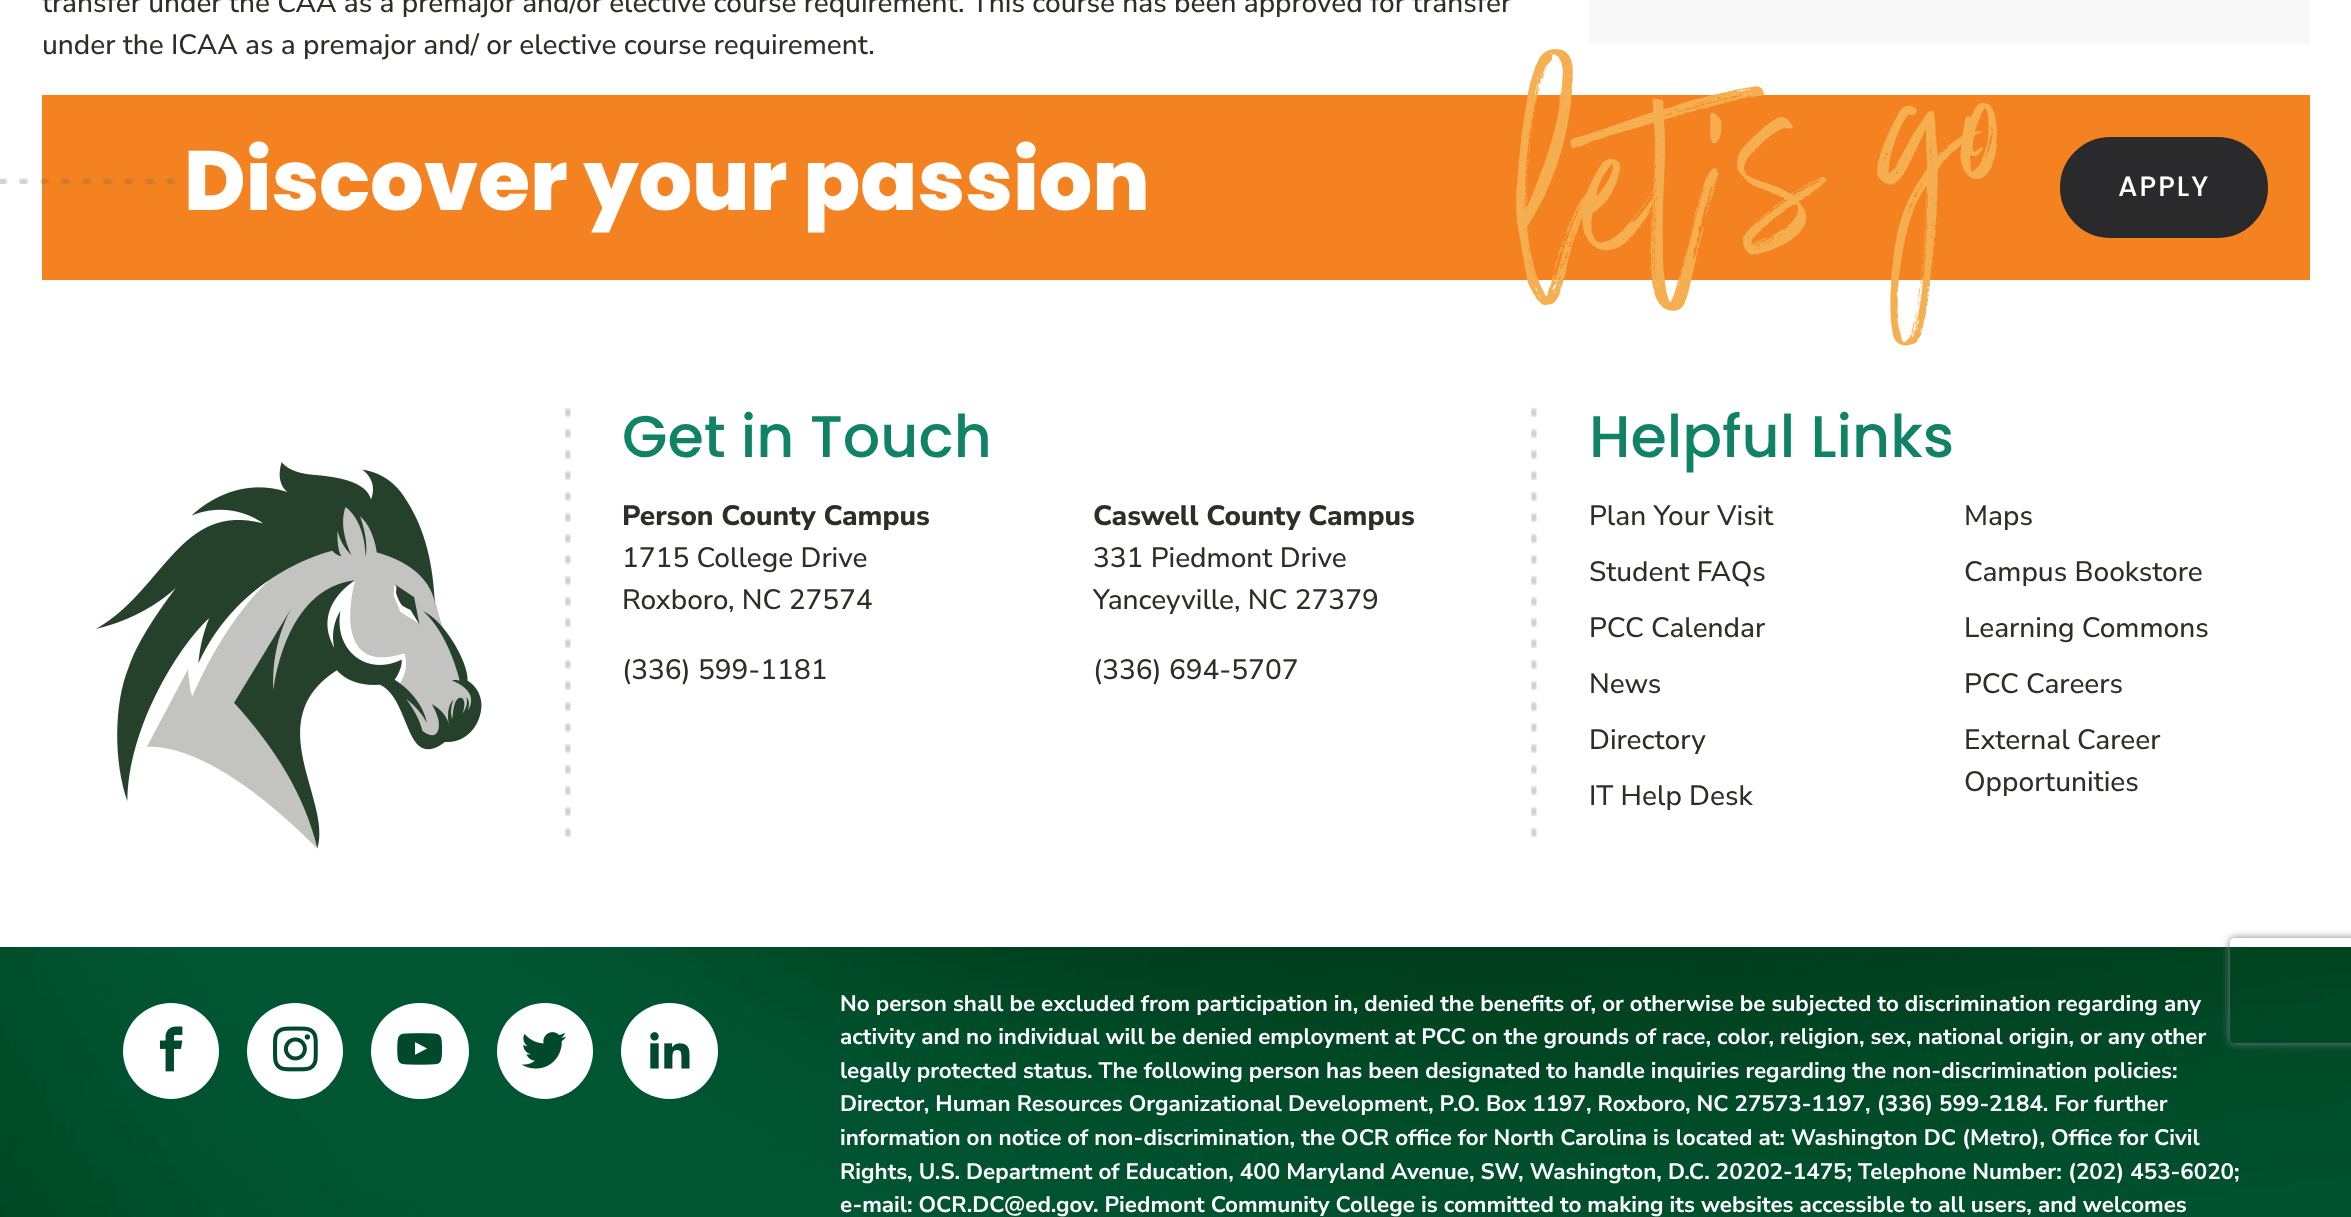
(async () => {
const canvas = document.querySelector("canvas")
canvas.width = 2351
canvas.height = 1217
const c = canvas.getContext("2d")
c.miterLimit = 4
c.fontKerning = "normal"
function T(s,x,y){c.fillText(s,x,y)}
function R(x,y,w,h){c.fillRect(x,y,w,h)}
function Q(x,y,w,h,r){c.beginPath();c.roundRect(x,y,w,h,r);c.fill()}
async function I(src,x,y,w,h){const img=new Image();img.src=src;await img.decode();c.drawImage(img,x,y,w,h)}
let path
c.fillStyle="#fff"
R(0,0,2351,1217)
c.font="500 28px Nunito Sans"
c.fillStyle="#2d2d2a"
T("transfer under the CAA as a premajor and/or elective course requirement. This course has been approved for transfer",42,12)
T("under the ICAA as a premajor and/ or elective course requirement.",42,54)
c.fillStyle="#f8f8f8"
R(1589,0,721,44)
c.fillStyle="#f58220"
R(42,95,2268,185)
await I("1.png",0,178,176,6)
c.font="800 84px Poppins"
c.fillStyle="#fff"
T("Discover your passion",184,210)
c.save()
path = new Path2D("M1482 24.5l827.5-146l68.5 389.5l-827 146z")
c.clip(path)
c.font="396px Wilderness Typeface"
c.fillStyle="#f5af50"
c.save()
c.translate(1524,259)
c.rotate(-10 * Math.PI / 180)
c.fillText("let's go",0,0)
c.restore()
c.restore()
c.fillStyle="#2a2a2d"
c.beginPath()
c.roundRect(2061,138,206,99,49.5)
c.fill()
c.strokeStyle="#2a2a2d"
c.lineWidth=2
c.stroke()
c.letterSpacing="2px"
c.font="500 28px Poppins"
c.fillStyle="#fff"
T("APPLY",2118,196)
await I("2.png",565,407,6,430)
await I("3.png",96,462,386,387)
await I("2.png",1531,407,6,430)
c.letterSpacing="0px"
c.font="500 58.75px Poppins"
c.fillStyle="#108265"
T("Get in Touch",622,457)
c.font="800 28px Nunito Sans"
c.fillStyle="#2d2d2a"
T("Person County Campus",622,525)
c.font="500 28px Nunito Sans"
T("1715 College Drive",622,567)
T("Roxboro, NC 27574",622,609)
c.font="800 28px Nunito Sans"
T("Caswell County Campus",1093,525)
c.font="500 28px Nunito Sans"
T("331 Piedmont Drive",1093,567)
T("Yanceyville, NC 27379",1093,609)
T("(336) 599-1181",622,679)
T("(336) 694-5707",1093,679)
c.font="500 58.75px Poppins"
c.fillStyle="#108265"
T("Helpful Links",1589,457)
c.font="500 28px Nunito Sans"
c.fillStyle="#2d2d2a"
T("Plan Your Visit",1589,525)
T("Maps",1964,525)
T("Student FAQs",1589,581)
T("Campus Bookstore",1964,581)
T("PCC Calendar",1589,637)
T("Learning Commons",1964,637)
T("News",1589,693)
T("PCC Careers",1964,693)
T("Directory",1589,749)
T("External Career",1964,749)
T("Opportunities",1964,791)
T("IT Help Desk",1589,805)
await I("4.png",0,947,2351,270)
c.fillStyle="#fff"
c.beginPath()
c.arc(171,1051,48,0,7)
c.fill()
await I("5.png",159,1026,24,46)
c.beginPath()
c.arc(295,1051,48,0,7)
c.fill()
await I("6.png",273,1026,45,46)
Q(371,1003,98,96,48)
await I("7.png",397,1033,46,32)
c.beginPath()
c.arc(545,1051,48,0,7)
c.fill()
await I("8.png",521,1032,46,37)
Q(621,1003,97,96,48)
await I("9.png",650,1032,40,37)
c.font="bold 22.4px Nunito Sans"
T("No person shall be excluded from participation in, denied the benefits of, or otherwise be subjected to discrimination regarding any",840,1011)
T("activity and no individual will be denied employment at PCC on the grounds of race, color, religion, sex, national origin, or any other",840,1044)
T("legally protected status. The following person has been designated to handle inquiries regarding the non-discrimination policies:",840,1078)
T("Director, Human Resources Organizational Development, P.O. Box 1197, Roxboro, NC 27573-1197, (336) 599-2184. For further",840,1111)
T("information on notice of non-discrimination, the OCR office for North Carolina is located at: Washington DC (Metro), Office for Civil",840,1145)
T("Rights, U.S. Department of Education, 400 Maryland Avenue, SW, Washington, D.C. 20202-1475; Telephone Number: (202) 453-6020;",840,1179)
T("e-mail: OCR.DC@ed.gov. Piedmont Community College is committed to making its websites accessible to all users, and welcomes",840,1212)
c.save()
path = new Path2D("M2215 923h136v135h-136zm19 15h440c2 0 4 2 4 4v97c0 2-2 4-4 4h-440c-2 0-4-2-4-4v-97c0-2 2-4 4-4z")
c.clip(path,"evenodd")
c.fillStyle="#808080"
c.filter="blur(4.5px)"
c.beginPath()
c.roundRect(2230,938,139,105,4)
c.fill()
c.filter="none"
c.restore()
})()
